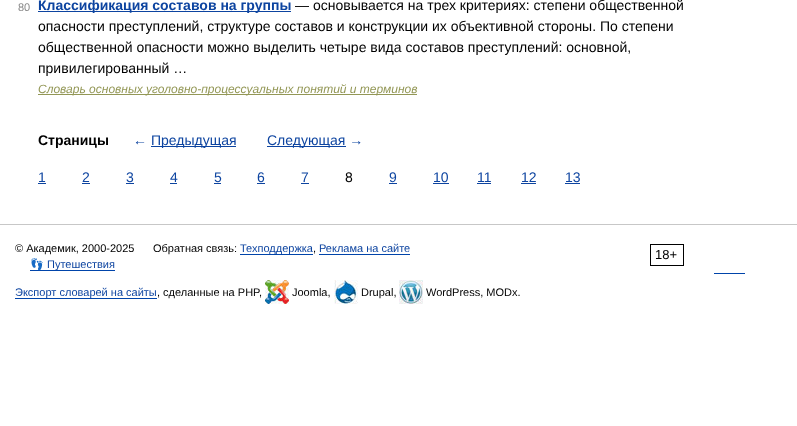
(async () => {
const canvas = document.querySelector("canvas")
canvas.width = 797
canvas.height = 426
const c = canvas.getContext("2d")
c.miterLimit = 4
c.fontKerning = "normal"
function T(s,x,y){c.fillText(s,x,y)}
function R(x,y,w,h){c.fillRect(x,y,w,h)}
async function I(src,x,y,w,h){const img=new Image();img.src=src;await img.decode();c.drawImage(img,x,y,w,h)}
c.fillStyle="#fff"
R(0,0,797,426)
c.font="11px Liberation Sans"
c.fillStyle="#898989"
T("80",18,11)
c.fillStyle="#0d44a0"
R(38,11,253,1)
c.font="bold 14px Liberation Sans"
T("Классификация составов на группы",38,10)
c.font="14px Liberation Sans"
c.fillStyle="#000"
T("— основывается на трех критериях: степени общественной",295,10)
T("опасности преступлений, структуре составов и конструкции их объективной стороны. По степени",38,31)
T("общественной опасности можно выделить четыре вида составов преступлений: основной,",38,52)
T("привилегированный …",38,73)
c.fillStyle="#939756"
R(38,94,379,1)
c.font="italic 12px Liberation Sans"
T("Словарь основных уголовно-процессуальных понятий и терминов",38,93)
c.font="bold 14px Liberation Sans"
c.fillStyle="#000"
T("Страницы",38,145)
c.font="14px Liberation Sans"
c.fillStyle="#0d44a0"
T("←",133,145)
R(151,146,85,1)
T("Предыдущая",151,145)
R(267,146,79,1)
T("Следующая →",267,145)
T("1",38,182)
R(38,183,8,1)
T("2",82,182)
R(82,183,8,1)
T("3",126,182)
R(126,183,8,1)
T("4",170,182)
R(170,183,7,1)
T("5",214,182)
R(214,183,7,1)
T("6",257,182)
R(257,183,8,1)
T("7",301,182)
R(301,183,8,1)
c.fillStyle="#000"
T("8",345,182)
c.fillStyle="#0d44a0"
T("9",389,182)
R(389,183,8,1)
T("10",433,182)
R(433,183,16,1)
T("11",477,182)
R(477,183,14,1)
T("12",521,182)
R(521,183,15,1)
T("13",565,182)
R(565,183,15,1)
c.fillStyle="#c7c7c7"
R(0,224,797,1)
c.font="11px Liberation Sans"
c.fillStyle="#000"
T("© Академик, 2000-2025",15,252)
T("Обратная связь:",153,252)
c.fillStyle="#04a"
R(240,254,73,1)
c.fillStyle="#0d44a0"
T("Техподдержка",240,252)
c.fillStyle="#000"
T(",",313,252)
c.fillStyle="#04a"
R(319,254,91,1)
c.fillStyle="#0d44a0"
T("Реклама на сайте",319,252)
c.strokeStyle="#000"
c.strokeRect(650.5,244.5,33,21)
c.font="13px Liberation Sans"
c.fillStyle="#000"
T("18+",655,259)
c.fillStyle="#04a"
R(30,270,85,1)
c.font="11px Noto Color Emoji"
c.fillStyle="#0d44a0"
T("👣",30,268)
c.font="11px Liberation Sans"
T("Путешествия",47,268)
c.fillStyle="#04a"
R(714,273,31,1)
R(15,298,142,1)
c.fillStyle="#0d44a0"
T("Экспорт словарей на сайты",15,296)
c.fillStyle="#000"
T(", сделанные на PHP,",157,296)
await I("1.png",265,280,24,24)
T("Joomla,",292,296)
await I("2.png",334,280,24,24)
T("Drupal,",361,296)
await I("3.png",399,280,24,24)
T("WordPress, MODx.",426,296)
})()
